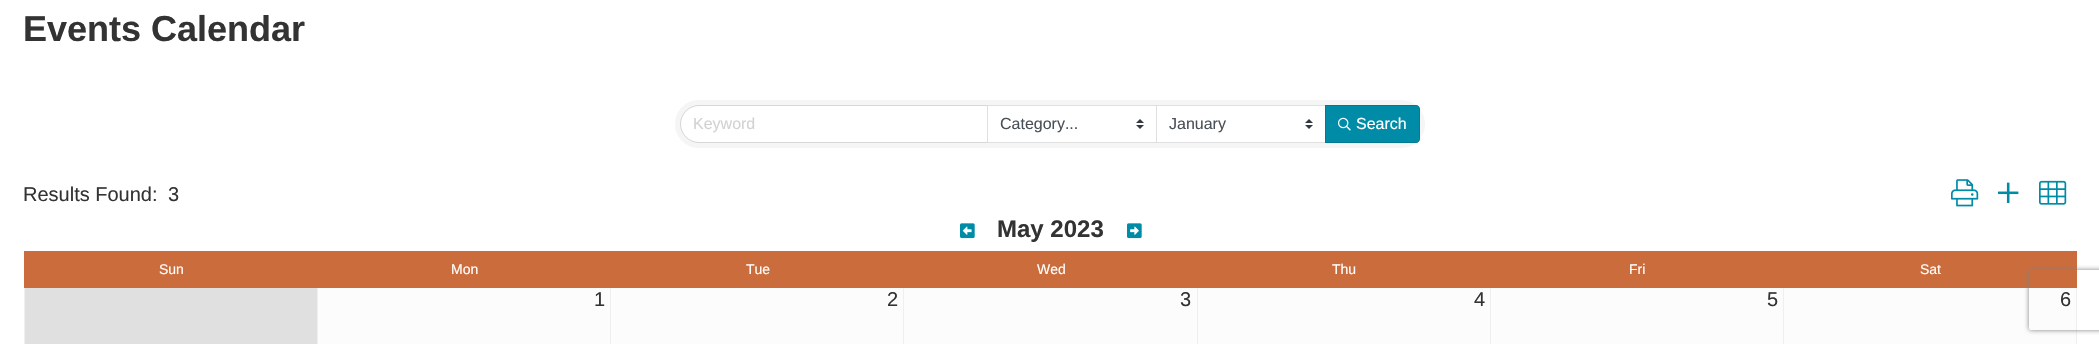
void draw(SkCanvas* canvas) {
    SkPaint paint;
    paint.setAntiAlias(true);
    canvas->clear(0xFFFFFFFF);
    SkFont font1(fontMgr->matchFamilyStyle("Liberation Sans", SkFontStyle::Bold()), 36);
    font1.setSubpixel(true);
    paint.setColor(0xFF333333);
    canvas->drawString("Events Calendar", 23, 41, font1, paint);
    paint.setColor(0xFFF5F5F5);
    canvas->drawRoundRect(SkRect::MakeXYWH(675, 100, 750, 48), 24, 24, paint);
    paint.setColor(0xFFFFFFFF);
    canvas->drawPath(SkPathBuilder().moveTo(699, 106).lineTo(987, 106).lineTo(987, 142).lineTo(699, 142).cubicTo(689, 142, 681, 134, 681, 124).cubicTo(681, 114, 689, 106, 699, 106).close().detach(), paint);
    paint.setStyle(SkPaint::kStroke_Style);
    paint.setStrokeWidth(1);
    paint.setColor(0x1F000000);
    canvas->drawPath(SkPathBuilder().moveTo(699, 105.5f).lineTo(987.5f, 105.5f).lineTo(987.5f, 142.5f).lineTo(699, 142.5f).cubicTo(689, 142.5f, 680.5f, 134, 680.5f, 124).cubicTo(680.5f, 114, 689, 105.5f, 699, 105.5f).close().detach(), paint);
    SkFont font2(fontMgr->matchFamilyStyle("Liberation Sans", SkFontStyle::Normal()), 16);
    font2.setSubpixel(true);
    paint.setStyle(SkPaint::kFill_Style);
    paint.setColor(0xFFD2D2D2);
    canvas->drawString("Keyword", 693, 129, font2, paint);
    paint.setColor(0xFFFFFFFF);
    canvas->drawRect(SkRect::MakeXYWH(988, 106, 168, 36), paint);
    canvas->drawImageRect(SkImages::DeferredFromEncodedData(SkData::MakeFromFileName("img1.png")), SkRect::MakeXYWH(1136, 119, 8, 10), SkSamplingOptions());
    paint.setStyle(SkPaint::kStroke_Style);
    paint.setColor(0xFFDFDFDF);
    canvas->drawRect(SkRect::MakeXYWH(987.5f, 105.5f, 169, 37), paint);
    paint.setStyle(SkPaint::kFill_Style);
    paint.setColor(0xFF495057);
    canvas->drawString("Category...", 1000, 129, font2, paint);
    paint.setColor(0xFFFFFFFF);
    canvas->drawRect(SkRect::MakeXYWH(1157, 106, 168, 36), paint);
    canvas->drawImageRect(SkImages::DeferredFromEncodedData(SkData::MakeFromFileName("img1.png")), SkRect::MakeXYWH(1305, 119, 8, 10), SkSamplingOptions());
    paint.setStyle(SkPaint::kStroke_Style);
    paint.setColor(0xFFDFDFDF);
    canvas->drawRect(SkRect::MakeXYWH(1156.5f, 105.5f, 169, 37), paint);
    paint.setStyle(SkPaint::kFill_Style);
    paint.setColor(0xFF495057);
    canvas->drawString("January", 1169, 129, font2, paint);
    paint.setColor(0xFF008CA7);
    canvas->drawPath(SkPathBuilder().moveTo(1325, 105).lineTo(1416, 105).cubicTo(1418, 105, 1420, 107, 1420, 109).lineTo(1420, 139).cubicTo(1420, 141, 1418, 143, 1416, 143).lineTo(1325, 143).close().detach(), paint);
    paint.setStyle(SkPaint::kStroke_Style);
    paint.setColor(0x1F000000);
    canvas->drawPath(SkPathBuilder().moveTo(1325.5f, 105.5f).lineTo(1416, 105.5f).cubicTo(1418, 105.5f, 1419.5f, 107, 1419.5f, 109).lineTo(1419.5f, 139).cubicTo(1419.5f, 141, 1418, 142.5f, 1416, 142.5f).lineTo(1325.5f, 142.5f).close().detach(), paint);
    canvas->drawImageRect(SkImages::DeferredFromEncodedData(SkData::MakeFromFileName("img2.png")), SkRect::MakeXYWH(1338, 117, 13, 14), SkSamplingOptions());
    paint.setStyle(SkPaint::kFill_Style);
    paint.setColor(0xFFFFFFFF);
    canvas->drawString("Search", 1356, 129, font2, paint);
    SkFont font3(fontMgr->matchFamilyStyle("Liberation Sans", SkFontStyle::Normal()), 20);
    font3.setSubpixel(true);
    paint.setColor(0xFF333333);
    canvas->drawString("Results Found:", 23, 201, font3, paint);
    canvas->drawString("3", 168, 201, font3, paint);
    canvas->drawImageRect(SkImages::DeferredFromEncodedData(SkData::MakeFromFileName("img3.png")), SkRect::MakeXYWH(1951, 179, 28, 28), SkSamplingOptions());
    canvas->drawImageRect(SkImages::DeferredFromEncodedData(SkData::MakeFromFileName("img4.png")), SkRect::MakeXYWH(1998, 182, 21, 21), SkSamplingOptions());
    canvas->drawImageRect(SkImages::DeferredFromEncodedData(SkData::MakeFromFileName("img5.png")), SkRect::MakeXYWH(2039, 180, 28, 25), SkSamplingOptions());
    canvas->drawImageRect(SkImages::DeferredFromEncodedData(SkData::MakeFromFileName("img6.png")), SkRect::MakeXYWH(960, 223, 15, 16), SkSamplingOptions());
    SkFont font4(fontMgr->matchFamilyStyle("Liberation Sans", SkFontStyle::Bold()), 24);
    font4.setSubpixel(true);
    canvas->drawString("May 2023", 997, 237, font4, paint);
    canvas->drawImageRect(SkImages::DeferredFromEncodedData(SkData::MakeFromFileName("img7.png")), SkRect::MakeXYWH(1127, 223, 15, 16), SkSamplingOptions());
    paint.setColor(0xFFCB6C3C);
    canvas->drawRect(SkRect::MakeXYWH(25, 252, 2051, 35), paint);
    canvas->drawRect(SkRect::MakeXYWH(24, 251, 2053, 1), paint);
    paint.setColor(0xFFEFEFEF);
    canvas->drawRect(SkRect::MakeXYWH(2076, 287, 1, 57), paint);
    paint.setColor(0xFFCB6C3C);
    canvas->drawRect(SkRect::MakeXYWH(2076, 251, 1, 37), paint);
    paint.setColor(0xFFEFEFEF);
    canvas->drawRect(SkRect::MakeXYWH(24, 287, 1, 57), paint);
    canvas->drawRect(SkRect::MakeXYWH(317, 287, 1, 57), paint);
    paint.setColor(0xFFFCFCFC);
    canvas->drawRect(SkRect::MakeXYWH(318, 288, 1758, 56), paint);
    paint.setColor(0xFFEFEFEF);
    canvas->drawRect(SkRect::MakeXYWH(610, 287, 1, 57), paint);
    canvas->drawRect(SkRect::MakeXYWH(903, 287, 1, 57), paint);
    canvas->drawRect(SkRect::MakeXYWH(1197, 287, 1, 57), paint);
    canvas->drawRect(SkRect::MakeXYWH(1490, 287, 1, 57), paint);
    canvas->drawRect(SkRect::MakeXYWH(1783, 287, 1, 57), paint);
    paint.setColor(0xFFCB6C3C);
    canvas->drawRect(SkRect::MakeXYWH(24, 287, 2053, 1), paint);
    canvas->drawRect(SkRect::MakeXYWH(24, 251, 1, 37), paint);
    SkFont font5(fontMgr->matchFamilyStyle("Liberation Sans", SkFontStyle::Normal()), 14);
    font5.setSubpixel(true);
    paint.setColor(0xFFFFFFFF);
    canvas->drawString("Sun", 159, 274, font5, paint);
    canvas->drawString("Mon", 451, 274, font5, paint);
    canvas->drawString("Tue", 746, 274, font5, paint);
    canvas->drawString("Wed", 1037, 274, font5, paint);
    canvas->drawString("Thu", 1332, 274, font5, paint);
    canvas->drawString("Fri", 1629, 274, font5, paint);
    canvas->drawString("Sat", 1920, 274, font5, paint);
    paint.setColor(0xFFE0E0E0);
    canvas->drawRect(SkRect::MakeXYWH(25, 288, 292, 56), paint);
    paint.setColor(0xFF333333);
    canvas->drawString("1", 594, 306, font3, paint);
    canvas->drawString("2", 887, 306, font3, paint);
    canvas->drawString("3", 1180, 306, font3, paint);
    canvas->drawString("4", 1474, 306, font3, paint);
    canvas->drawString("5", 1767, 306, font3, paint);
    canvas->drawString("6", 2060, 306, font3, paint);
    canvas->save();
    canvas->clipPath(SkPathBuilder(SkPathFillType::kEvenOdd).moveTo(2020, 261).lineTo(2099, 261).lineTo(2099, 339).lineTo(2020, 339).close().moveTo(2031, 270).lineTo(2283, 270).cubicTo(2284, 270, 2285, 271, 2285, 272).lineTo(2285, 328).cubicTo(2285, 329, 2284, 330, 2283, 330).lineTo(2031, 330).cubicTo(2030, 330, 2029, 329, 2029, 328).lineTo(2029, 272).cubicTo(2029, 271, 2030, 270, 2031, 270).close().detach(), true);
    paint.setColor(0xFF808080);
    paint.setMaskFilter(SkMaskFilter::MakeBlur(kNormal_SkBlurStyle, 2.5f));
    canvas->drawRoundRect(SkRect::MakeXYWH(2029, 270, 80, 60), 2, 2, paint);
    paint.setMaskFilter(nullptr);
    canvas->restore();
}
